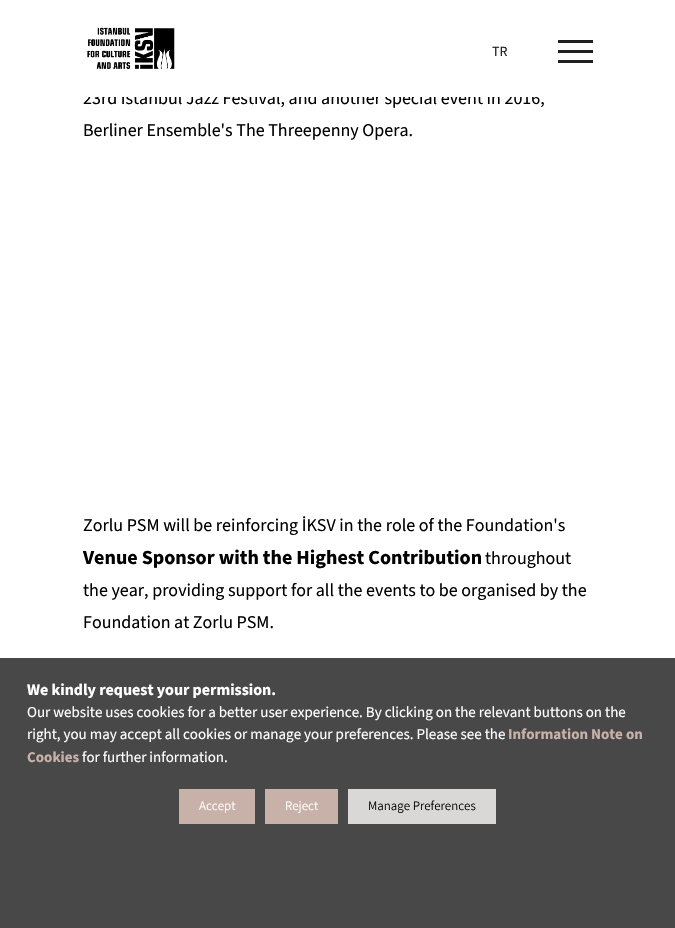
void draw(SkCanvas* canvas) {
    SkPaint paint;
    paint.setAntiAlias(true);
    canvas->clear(0xFFFFFFFF);
    SkFont font1(fontMgr->matchFamilyStyle("Source Sans 3", SkFontStyle::Normal()), 18);
    font1.setSubpixel(true);
    paint.setColor(0xFF000000);
    canvas->drawString("23rd Istanbul Jazz Festival, and another special event in 2016,", 83, 104, font1, paint);
    paint.setColor(0xFFFFFFFF);
    canvas->drawRect(SkRect::MakeXYWH(83, 91, 456, 6), paint);
    canvas->drawImageRect(SkImages::DeferredFromEncodedData(SkData::MakeFromFileName("img1.png")), SkRect::MakeXYWH(87, 27, 88, 42), SkSamplingOptions());
    SkFont font2(fontMgr->matchFamilyStyle("Source Sans 3", SkFontStyle::Normal()), 14);
    font2.setSubpixel(true);
    paint.setColor(0xFF202020);
    canvas->drawString("TR", 492, 56, font2, paint);
    canvas->drawRect(SkRect::MakeXYWH(558, 40, 35, 3), paint);
    canvas->drawRect(SkRect::MakeXYWH(558, 50, 35, 3), paint);
    canvas->drawRect(SkRect::MakeXYWH(558, 60, 35, 3), paint);
    paint.setColor(0xFF000000);
    canvas->drawString("Berliner Ensemble's The Threepenny Opera.", 83, 136, font1, paint);
    canvas->drawString("Zorlu PSM will be reinforcing İKSV in the role of the Foundation's", 83, 531, font1, paint);
    SkFont font3(fontMgr->matchFamilyStyle("Source Sans 3", SkFontStyle::Bold()), 20);
    font3.setSubpixel(true);
    canvas->drawString("Venue Sponsor with the Highest Contribution", 83, 564, font3, paint);
    canvas->drawString("throughout", 485, 564, font1, paint);
    canvas->drawString("the year, providing support for all the events to be organised by the", 83, 596, font1, paint);
    canvas->drawString("Foundation at Zorlu PSM.", 83, 628, font1, paint);
    paint.setColor(0xFF484848);
    canvas->drawRect(SkRect::MakeXYWH(0, 658, 675, 270), paint);
    SkFont font4(fontMgr->matchFamilyStyle("Source Sans 3", SkFontStyle::Bold()), 16);
    font4.setSubpixel(true);
    paint.setColor(0xFFFFFFFF);
    canvas->drawString("We kindly request your permission.", 27, 695, font4, paint);
    SkFont font5(fontMgr->matchFamilyStyle("Source Sans 3", SkFontStyle::Normal()), 15);
    font5.setSubpixel(true);
    canvas->drawString("Our website uses cookies for a better user experience. By clicking on the relevant buttons on the", 27, 717, font5, paint);
    canvas->drawString("right, you may accept all cookies or manage your preferences. Please see the", 27, 739, font5, paint);
    SkFont font6(fontMgr->matchFamilyStyle("Source Sans 3", SkFontStyle::Bold()), 15);
    font6.setSubpixel(true);
    paint.setColor(0xFFC8B1A8);
    canvas->drawString("Information Note on", 508, 739, font6, paint);
    canvas->drawString("Cookies", 27, 762, font6, paint);
    paint.setColor(0xFFFFFFFF);
    canvas->drawString("for further information.", 82, 762, font5, paint);
    paint.setColor(0xFFC8B1A8);
    canvas->drawRect(SkRect::MakeXYWH(179, 789, 76, 35), paint);
    SkFont font7(fontMgr->matchFamilyStyle("Source Sans 3", SkFontStyle(300, SkFontStyle::kNormal_Width, SkFontStyle::kUpright_Slant)), 13);
    font7.setSubpixel(true);
    paint.setColor(0xFFFFFFFF);
    canvas->drawString("Accept", 199, 810, font7, paint);
    paint.setColor(0xFFC8B1A8);
    canvas->drawRect(SkRect::MakeXYWH(265, 789, 73, 35), paint);
    paint.setColor(0xFFFFFFFF);
    canvas->drawString("Reject", 285, 810, font7, paint);
    paint.setColor(0xFFDAD7D7);
    canvas->drawRect(SkRect::MakeXYWH(348, 789, 148, 35), paint);
    paint.setColor(0xFF000000);
    canvas->drawString("Manage Preferences", 368, 810, font7, paint);
}
